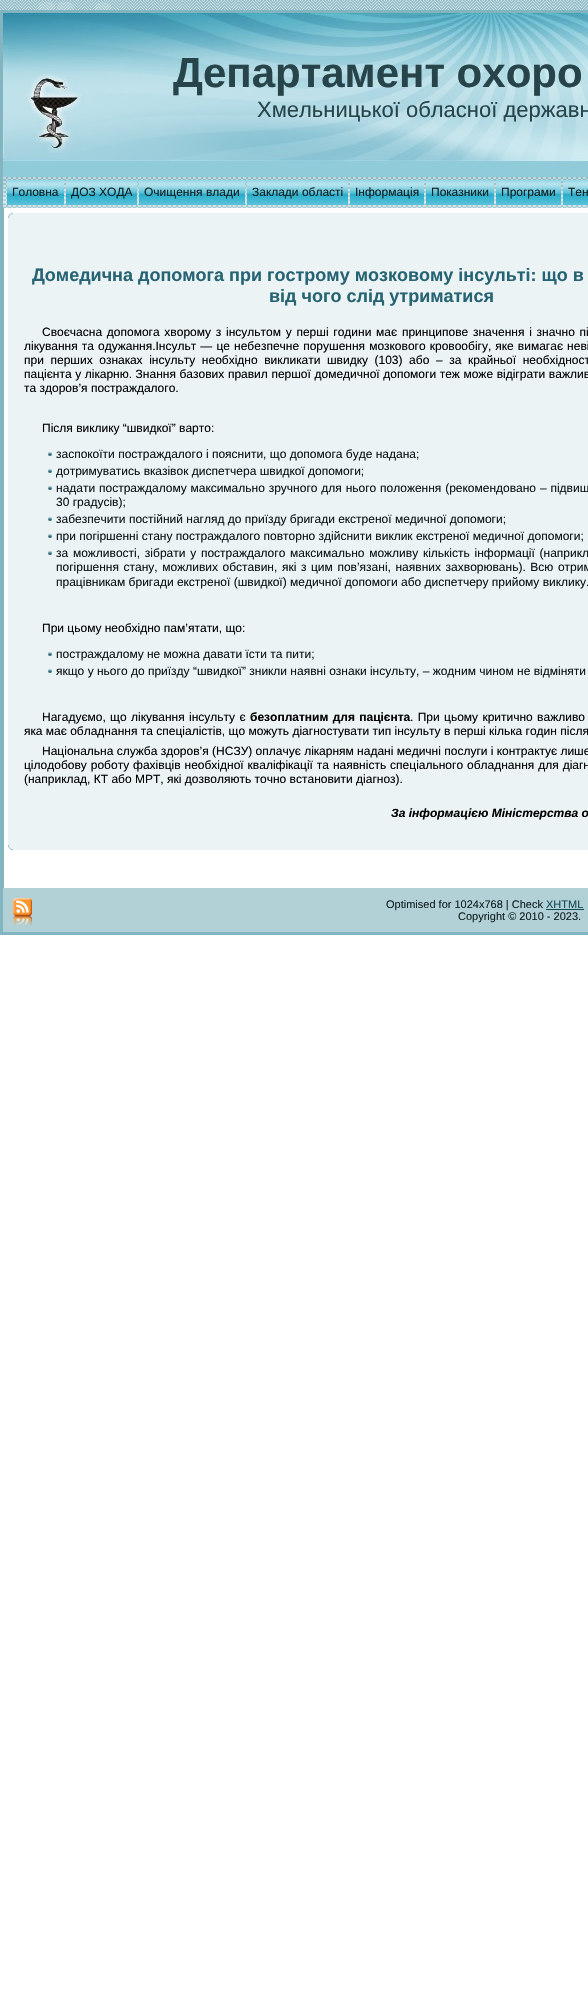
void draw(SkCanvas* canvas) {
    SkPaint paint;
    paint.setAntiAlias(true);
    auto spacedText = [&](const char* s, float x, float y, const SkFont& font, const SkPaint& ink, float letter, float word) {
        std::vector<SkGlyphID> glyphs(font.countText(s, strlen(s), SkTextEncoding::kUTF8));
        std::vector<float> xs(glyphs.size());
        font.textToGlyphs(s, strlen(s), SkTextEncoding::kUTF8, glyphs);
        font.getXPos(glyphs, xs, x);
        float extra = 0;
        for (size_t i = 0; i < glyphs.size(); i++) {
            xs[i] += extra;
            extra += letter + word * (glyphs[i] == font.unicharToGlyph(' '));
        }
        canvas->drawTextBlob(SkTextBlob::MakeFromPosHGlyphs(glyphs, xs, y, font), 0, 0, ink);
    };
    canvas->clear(0xFFFFFFFF);
    canvas->drawImageRect(SkImages::DeferredFromEncodedData(SkData::MakeFromFileName("img1.png")), SkRect::MakeXYWH(0, 0, 588, 10), SkSamplingOptions());
    canvas->drawImageRect(SkImages::DeferredFromEncodedData(SkData::MakeFromFileName("img2.png")), SkRect::MakeXYWH(38, 2, 74, 8), SkSamplingOptions());
    paint.setColor(0xFF82B5BF);
    canvas->drawRect(SkRect::MakeXYWH(0, 10, 4, 4), paint);
    canvas->drawRect(SkRect::MakeXYWH(4, 10, 584, 3), paint);
    canvas->drawRect(SkRect::MakeXYWH(0, 14, 4, 921), paint);
    canvas->drawImageRect(SkImages::DeferredFromEncodedData(SkData::MakeFromFileName("img3.png")), SkRect::MakeXYWH(3, 13, 585, 164), SkSamplingOptions());
    SkFont font1(fontMgr->matchFamilyStyle("Liberation Sans", SkFontStyle::Bold()), 42);
    font1.setSubpixel(true);
    paint.setColor(0xFF26444A);
    canvas->drawString("Департамент охоро", 173, 87, font1, paint);
    SkFont font2(fontMgr->matchFamilyStyle("Liberation Sans", SkFontStyle::Normal()), 22);
    font2.setSubpixel(true);
    canvas->drawString("Хмельницької обласної державн", 257, 117, font2, paint);
    canvas->drawImageRect(SkImages::DeferredFromEncodedData(SkData::MakeFromFileName("img4.png")), SkRect::MakeXYWH(3, 177, 585, 31), SkSamplingOptions());
    canvas->drawImageRect(SkImages::DeferredFromEncodedData(SkData::MakeFromFileName("img5.png")), SkRect::MakeXYWH(7, 180, 57, 25), SkSamplingOptions());
    SkFont font3(fontMgr->matchFamilyStyle("Liberation Sans", SkFontStyle::Normal()), 12);
    font3.setSubpixel(true);
    paint.setColor(0xFF111F22);
    canvas->drawString("Головна", 12, 196, font3, paint);
    canvas->drawImageRect(SkImages::DeferredFromEncodedData(SkData::MakeFromFileName("img6.png")), SkRect::MakeXYWH(66, 180, 71, 25), SkSamplingOptions());
    canvas->drawString("ДОЗ ХОДА", 71, 196, font3, paint);
    canvas->drawImageRect(SkImages::DeferredFromEncodedData(SkData::MakeFromFileName("img7.png")), SkRect::MakeXYWH(139, 180, 106, 25), SkSamplingOptions());
    canvas->drawString("Очищення влади", 144, 196, font3, paint);
    canvas->drawImageRect(SkImages::DeferredFromEncodedData(SkData::MakeFromFileName("img8.png")), SkRect::MakeXYWH(247, 180, 101, 25), SkSamplingOptions());
    canvas->drawString("Заклади області", 252, 196, font3, paint);
    canvas->drawImageRect(SkImages::DeferredFromEncodedData(SkData::MakeFromFileName("img9.png")), SkRect::MakeXYWH(350, 180, 74, 25), SkSamplingOptions());
    canvas->drawString("Інформація", 355, 196, font3, paint);
    canvas->drawImageRect(SkImages::DeferredFromEncodedData(SkData::MakeFromFileName("img10.png")), SkRect::MakeXYWH(426, 180, 68, 25), SkSamplingOptions());
    canvas->drawString("Показники", 431, 196, font3, paint);
    canvas->drawImageRect(SkImages::DeferredFromEncodedData(SkData::MakeFromFileName("img11.png")), SkRect::MakeXYWH(496, 180, 65, 25), SkSamplingOptions());
    canvas->drawString("Програми", 501, 196, font3, paint);
    canvas->drawImageRect(SkImages::DeferredFromEncodedData(SkData::MakeFromFileName("img12.png")), SkRect::MakeXYWH(563, 180, 25, 25), SkSamplingOptions());
    canvas->drawString("Тен", 568, 196, font3, paint);
    canvas->drawImageRect(SkImages::DeferredFromEncodedData(SkData::MakeFromFileName("img13.png")), SkRect::MakeXYWH(8, 213, 5, 5), SkSamplingOptions());
    paint.setColor(0xFFEBF3F5);
    canvas->drawRect(SkRect::MakeXYWH(13, 213, 575, 5), paint);
    canvas->drawRect(SkRect::MakeXYWH(8, 218, 580, 627), paint);
    SkFont font4(fontMgr->matchFamilyStyle("Liberation Sans", SkFontStyle::Bold()), 18);
    font4.setSubpixel(true);
    paint.setColor(0xFF266373);
    canvas->drawString("Домедична допомога при гострому мозковому інсульті: що в", 32, 281, font4, paint);
    canvas->drawString("від чого слід утриматися", 269, 302, font4, paint);
    paint.setColor(0xFF000000);
    spacedText("Своєчасна допомога хворому з інсультом у перші години має принципове значення і значно пі", 42, 336, font3, paint, 0, 1.4f);
    spacedText("лікування та одужання.Інсульт — це небезпечне порушення мозкового кровообігу, яке вимагає неві", 24, 350, font3, paint, 0, 0.75f);
    spacedText("при перших ознаках інсульту необхідно викликати швидку (103) або – за крайньої необхідност", 24, 364, font3, paint, 0, 3.25f);
    spacedText("пацієнта у лікарню. Знання базових правил першої домедичної допомоги теж може відіграти важлив", 24, 378, font3, paint, 0, 0.25f);
    canvas->drawString("та здоров’я постраждалого.", 24, 392, font3, paint);
    canvas->drawString("Після виклику “швидкої” варто:", 42, 432, font3, paint);
    canvas->drawImageRect(SkImages::DeferredFromEncodedData(SkData::MakeFromFileName("img14.png")), SkRect::MakeXYWH(48, 452, 4, 4), SkSamplingOptions());
    paint.setColor(0xFF0C1618);
    canvas->drawString("заспокоїти постраждалого і пояснити, що допомога буде надана;", 56, 458, font3, paint);
    canvas->drawImageRect(SkImages::DeferredFromEncodedData(SkData::MakeFromFileName("img14.png")), SkRect::MakeXYWH(48, 469, 4, 4), SkSamplingOptions());
    canvas->drawString("дотримуватись вказівок диспетчера швидкої допомоги;", 56, 475, font3, paint);
    canvas->drawImageRect(SkImages::DeferredFromEncodedData(SkData::MakeFromFileName("img14.png")), SkRect::MakeXYWH(48, 486, 4, 4), SkSamplingOptions());
    spacedText("надати постраждалому максимально зручного для нього положення (рекомендовано – підвищ", 56, 492, font3, paint, 0, 0.5f);
    canvas->drawString("30 градусів);", 56, 506, font3, paint);
    canvas->drawImageRect(SkImages::DeferredFromEncodedData(SkData::MakeFromFileName("img14.png")), SkRect::MakeXYWH(48, 517, 4, 4), SkSamplingOptions());
    canvas->drawString("забезпечити постійний нагляд до приїзду бригади екстреної медичної допомоги;", 56, 523, font3, paint);
    canvas->drawImageRect(SkImages::DeferredFromEncodedData(SkData::MakeFromFileName("img14.png")), SkRect::MakeXYWH(48, 534, 4, 4), SkSamplingOptions());
    canvas->drawString("при погіршенні стану постраждалого повторно здійснити виклик екстреної медичної допомоги;", 56, 540, font3, paint);
    canvas->drawImageRect(SkImages::DeferredFromEncodedData(SkData::MakeFromFileName("img14.png")), SkRect::MakeXYWH(48, 551, 4, 4), SkSamplingOptions());
    spacedText("за можливості, зібрати у постраждалого максимально можливу кількість інформації (наприкл", 56, 557, font3, paint, 0, 1.4f);
    spacedText("погіршення стану, можливих обставин, які з цим пов’язані, наявних захворювань). Всю отрим", 56, 571, font3, paint, 0, 1.25f);
    canvas->drawString("працівникам бригади екстреної (швидкої) медичної допомоги або диспетчеру прийому виклику.", 56, 586, font3, paint);
    paint.setColor(0xFF000000);
    canvas->drawString("При цьому необхідно пам’ятати, що:", 42, 632, font3, paint);
    canvas->drawImageRect(SkImages::DeferredFromEncodedData(SkData::MakeFromFileName("img14.png")), SkRect::MakeXYWH(48, 652, 4, 4), SkSamplingOptions());
    paint.setColor(0xFF0C1618);
    canvas->drawString("постраждалому не можна давати їсти та пити;", 56, 658, font3, paint);
    canvas->drawImageRect(SkImages::DeferredFromEncodedData(SkData::MakeFromFileName("img14.png")), SkRect::MakeXYWH(48, 669, 4, 4), SkSamplingOptions());
    canvas->drawString("якщо у нього до приїзду “швидкої” зникли наявні ознаки інсульту, – жодним чином не відміняти", 56, 675, font3, paint);
    paint.setColor(0xFF000000);
    spacedText("Нагадуємо, що лікування інсульту є", 42, 721, font3, paint, 0, 1);
    SkFont font5(fontMgr->matchFamilyStyle("Liberation Sans", SkFontStyle::Bold()), 12);
    font5.setSubpixel(true);
    spacedText("безоплатним для пацієнта", 250, 721, font5, paint, 0, 1);
    spacedText(". При цьому критично важливо", 410, 721, font3, paint, 0, 1);
    canvas->drawString("яка має обладнання та спеціалістів, що можуть діагностувати тип інсульту в перші кілька годин пiсля", 24, 735, font3, paint);
    canvas->drawString("Національна служба здоров’я (НСЗУ) оплачує лікарням надані медичні послуги і контрактує лише", 42, 755, font3, paint);
    spacedText("цілодобову роботу фахівців необхідної кваліфікації та наявність спеціального обладнання для діагн", 24, 769, font3, paint, 0, 0.6f);
    canvas->drawString("(наприклад, КТ або МРТ, які дозволяють точно встановити діагноз).", 24, 783, font3, paint);
    SkFont font6(fontMgr->matchFamilyStyle("Liberation Sans", SkFontStyle::BoldItalic()), 12);
    font6.setSubpixel(true);
    canvas->drawString("За інформацією Міністерства о", 391, 817, font6, paint);
    canvas->drawImageRect(SkImages::DeferredFromEncodedData(SkData::MakeFromFileName("img15.png")), SkRect::MakeXYWH(8, 845, 5, 5), SkSamplingOptions());
    paint.setColor(0xFFEBF3F5);
    canvas->drawRect(SkRect::MakeXYWH(13, 845, 575, 5), paint);
    paint.setColor(0xFFB2D1D7);
    canvas->drawRect(SkRect::MakeXYWH(3, 888, 585, 44), paint);
    canvas->drawImageRect(SkImages::DeferredFromEncodedData(SkData::MakeFromFileName("img16.png")), SkRect::MakeXYWH(13, 898, 19, 28), SkSamplingOptions());
    SkFont font7(fontMgr->matchFamilyStyle("Liberation Sans", SkFontStyle::Normal()), 11);
    font7.setSubpixel(true);
    paint.setColor(0xFF111F22);
    canvas->drawString("Optimised for 1024x768 | Check", 386, 908, font7, paint);
    paint.setColor(0xFF134753);
    canvas->drawString("XHTML", 546, 908, font7, paint);
    canvas->drawRect(SkRect::MakeXYWH(546, 909, 38, 1), paint);
    paint.setColor(0xFF111F22);
    canvas->drawString("Copyright © 2010 - 2023.", 458, 920, font7, paint);
    paint.setColor(0xFF82B5BF);
    canvas->drawRect(SkRect::MakeXYWH(4, 932, 584, 3), paint);
}
